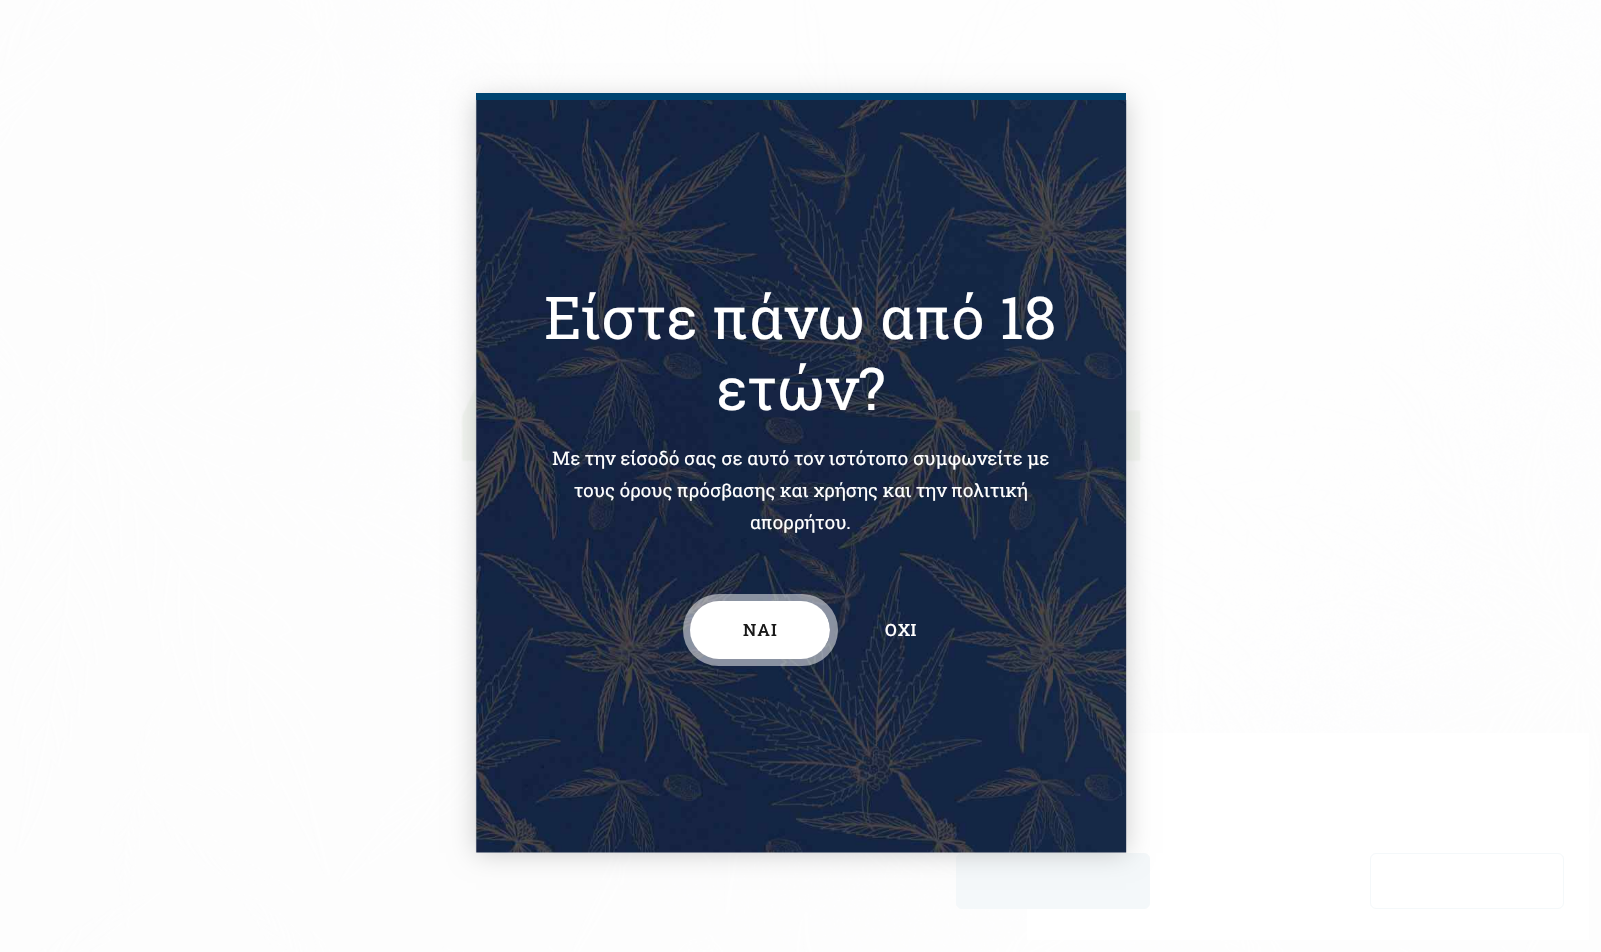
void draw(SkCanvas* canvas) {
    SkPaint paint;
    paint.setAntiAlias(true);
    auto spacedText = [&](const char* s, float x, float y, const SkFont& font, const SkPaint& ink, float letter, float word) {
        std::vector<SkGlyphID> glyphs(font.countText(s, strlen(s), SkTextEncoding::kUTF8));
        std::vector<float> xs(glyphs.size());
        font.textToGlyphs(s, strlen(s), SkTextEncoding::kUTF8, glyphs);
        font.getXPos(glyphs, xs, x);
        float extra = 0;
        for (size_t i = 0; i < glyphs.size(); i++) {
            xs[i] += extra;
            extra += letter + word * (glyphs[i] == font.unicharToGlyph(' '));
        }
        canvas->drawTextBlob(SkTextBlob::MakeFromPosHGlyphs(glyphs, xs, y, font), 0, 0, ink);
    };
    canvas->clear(0xFFFFFFFF);
    canvas->drawImageRect(SkImages::DeferredFromEncodedData(SkData::MakeFromFileName("img1.png")), SkRect::MakeXYWH(0, 0, 1601, 952), SkSamplingOptions());
    canvas->drawImageRect(SkImages::DeferredFromEncodedData(SkData::MakeFromFileName("img2.png")), SkRect::MakeXYWH(461, 91, 681, 371), SkSamplingOptions());
    paint.setColor(0xFFFFFFFF);
    canvas->drawRect(SkRect::MakeXYWH(1027, 733, 562, 207), paint);
    paint.setColor(0xFFF4F8FA);
    canvas->drawRoundRect(SkRect::MakeXYWH(956.5f, 853.5f, 193, 55), 5.5f, 5.5f, paint);
    paint.setStyle(SkPaint::kStroke_Style);
    paint.setStrokeWidth(1);
    canvas->drawRoundRect(SkRect::MakeXYWH(956.5f, 853.5f, 193, 55), 5.5f, 5.5f, paint);
    paint.setStyle(SkPaint::kFill_Style);
    paint.setColor(0x33000000);
    paint.setMaskFilter(SkMaskFilter::MakeBlur(kNormal_SkBlurStyle, 12.5f));
    canvas->drawRect(SkRect::MakeXYWH(476, 100, 650, 753), paint);
    paint.setMaskFilter(nullptr);
    canvas->drawImageRect(SkImages::DeferredFromEncodedData(SkData::MakeFromFileName("img3.png")), SkRect::MakeXYWH(475, 100, 652, 753), SkSamplingOptions());
    paint.setColor(0xFF004471);
    canvas->drawRect(SkRect::MakeXYWH(476, 93, 650, 7), paint);
    SkFont font1(fontMgr->matchFamilyStyle("Roboto Slab", SkFontStyle::Normal()), 59);
    font1.setSubpixel(true);
    paint.setColor(0xFFFFFFFF);
    canvas->drawString("Είστε πάνω από 18", 544, 339, font1, paint);
    canvas->drawString("ετών?", 716, 410, font1, paint);
    SkFont font2(fontMgr->matchFamilyStyle("Roboto Slab", SkFontStyle::Normal()), 18.75f);
    font2.setSubpixel(true);
    canvas->drawString("Με την είσοδό σας σε αυτό τον ιστότοπο συμφωνείτε με", 552, 465, font2, paint);
    canvas->drawString("τους όρους πρόσβασης και χρήσης και την πολιτική", 574, 497, font2, paint);
    canvas->drawString("απορρήτου.", 750, 529, font2, paint);
    canvas->drawRoundRect(SkRect::MakeXYWH(690, 601, 140, 58), 29, 29, paint);
    paint.setStyle(SkPaint::kStroke_Style);
    paint.setStrokeWidth(8);
    paint.setColor(0x80FFFFFF);
    canvas->drawRoundRect(SkRect::MakeXYWH(687, 598, 147, 64), 32, 32, paint);
    SkFont font3(fontMgr->matchFamilyStyle("Roboto Slab", SkFontStyle(500, SkFontStyle::kNormal_Width, SkFontStyle::kUpright_Slant)), 17);
    font3.setSubpixel(true);
    paint.setStyle(SkPaint::kFill_Style);
    paint.setColor(0xFF191919);
    spacedText("ΝΑΙ", 743, 636, font3, paint, 1, 0);
    paint.setColor(0xFFFFFFFF);
    spacedText("ΟΧΙ", 885, 636, font3, paint, 1, 0);
    paint.setStyle(SkPaint::kStroke_Style);
    paint.setStrokeWidth(1);
    paint.setColor(0xFFF4F8FA);
    canvas->drawRoundRect(SkRect::MakeXYWH(1370.5f, 853.5f, 193, 55), 5.5f, 5.5f, paint);
}
